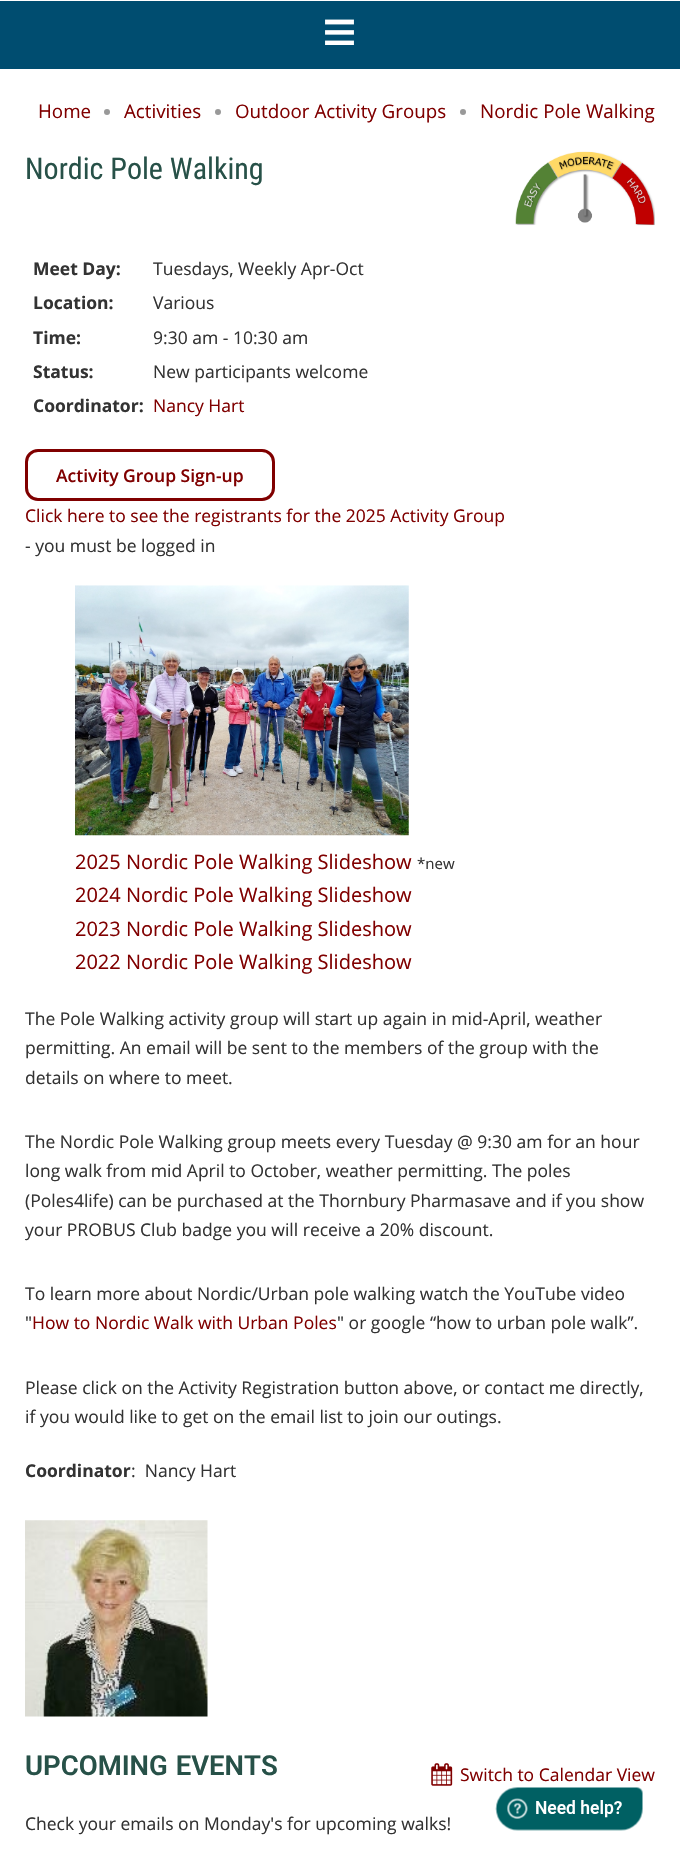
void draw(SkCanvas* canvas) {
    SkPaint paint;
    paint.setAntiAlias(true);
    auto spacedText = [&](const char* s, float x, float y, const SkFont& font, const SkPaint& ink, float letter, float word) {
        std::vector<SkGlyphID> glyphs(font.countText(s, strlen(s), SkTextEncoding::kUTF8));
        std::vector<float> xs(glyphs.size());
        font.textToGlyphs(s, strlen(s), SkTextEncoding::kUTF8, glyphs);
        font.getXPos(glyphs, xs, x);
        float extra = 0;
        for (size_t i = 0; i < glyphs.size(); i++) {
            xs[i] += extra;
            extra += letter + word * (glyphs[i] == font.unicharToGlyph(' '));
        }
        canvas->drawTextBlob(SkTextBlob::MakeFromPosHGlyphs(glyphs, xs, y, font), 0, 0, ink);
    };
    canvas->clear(0xFFFFFFFF);
    paint.setColor(0xFF004D70);
    canvas->drawRect(SkRect::MakeXYWH(0, 1, 680, 68), paint);
    SkFont font1(fontMgr->matchFamilyStyle("Liberation Serif", SkFontStyle::Bold()), 62);
    font1.setSubpixel(true);
    paint.setColor(0xFFFFFFFF);
    canvas->drawString("≡", 322, 53, font1, paint);
    SkFont font2(fontMgr->matchFamilyStyle("Open Sans", SkFontStyle::Normal()), 18.75f);
    font2.setSubpixel(true);
    paint.setColor(0xFF800000);
    canvas->drawString("Home", 38, 118, font2, paint);
    paint.setColor(0xFF999999);
    canvas->drawCircle(107, 112, 3, paint);
    paint.setColor(0xFF800000);
    canvas->drawString("Activities", 124, 118, font2, paint);
    paint.setColor(0xFF999999);
    canvas->drawCircle(218, 112, 3, paint);
    paint.setColor(0xFF800000);
    canvas->drawString("Outdoor Activity Groups", 235, 118, font2, paint);
    paint.setColor(0xFF999999);
    canvas->drawCircle(463, 112, 3, paint);
    paint.setColor(0xFF800000);
    canvas->drawString("Nordic Pole Walking", 480, 118, font2, paint);
    SkFont font3(fontMgr->matchFamilyStyle("Roboto Condensed", SkFontStyle::Normal()), 30);
    font3.setSubpixel(true);
    paint.setColor(0xFF275148);
    canvas->drawString("Nordic Pole Walking", 25, 179, font3, paint);
    canvas->drawImageRect(SkImages::DeferredFromEncodedData(SkData::MakeFromFileName("img1.png")), SkRect::MakeXYWH(515, 151, 140, 75), SkSamplingOptions());
    SkFont font4(fontMgr->matchFamilyStyle("Open Sans", SkFontStyle::Bold()), 17.5f);
    font4.setSubpixel(true);
    paint.setColor(0xFF333333);
    canvas->drawString("Meet Day:", 33, 275, font4, paint);
    SkFont font5(fontMgr->matchFamilyStyle("Open Sans", SkFontStyle::Normal()), 17.5f);
    font5.setSubpixel(true);
    canvas->drawString("Tuesdays, Weekly Apr-Oct", 153, 275, font5, paint);
    canvas->drawString("Location:", 33, 309, font4, paint);
    canvas->drawString("Various", 153, 309, font5, paint);
    canvas->drawString("Time:", 33, 344, font4, paint);
    canvas->drawString("9:30 am - 10:30 am", 153, 344, font5, paint);
    canvas->drawString("Status:", 33, 378, font4, paint);
    canvas->drawString("New participants welcome", 153, 378, font5, paint);
    canvas->drawString("Coordinator:", 33, 412, font4, paint);
    paint.setColor(0xFF800000);
    canvas->drawString("Nancy Hart", 153, 412, font5, paint);
    paint.setStyle(SkPaint::kStroke_Style);
    paint.setStrokeWidth(3);
    canvas->drawRoundRect(SkRect::MakeXYWH(26.5f, 450.5f, 247, 49), 11.5f, 11.5f, paint);
    SkFont font6(fontMgr->matchFamilyStyle("Open Sans", SkFontStyle(600, SkFontStyle::kNormal_Width, SkFontStyle::kUpright_Slant)), 17.5f);
    font6.setSubpixel(true);
    paint.setStyle(SkPaint::kFill_Style);
    canvas->drawString("Activity Group Sign-up", 56, 482, font6, paint);
    canvas->drawString("Click here to see the registrants for the 2025 Activity Group", 25, 522, font5, paint);
    paint.setColor(0xFF333333);
    canvas->drawString("- you must be logged in", 25, 552, font5, paint);
    canvas->drawImageRect(SkImages::DeferredFromEncodedData(SkData::MakeFromFileName("img2.png")), SkRect::MakeXYWH(75, 585, 334, 251), SkSamplingOptions());
    SkFont font7(fontMgr->matchFamilyStyle("Open Sans", SkFontStyle::Normal()), 20);
    font7.setSubpixel(true);
    paint.setColor(0xFF800000);
    canvas->drawString("2025 Nordic Pole Walking Slideshow", 75, 869, font7, paint);
    SkFont font8(fontMgr->matchFamilyStyle("Open Sans", SkFontStyle::Normal()), 15);
    font8.setSubpixel(true);
    paint.setColor(0xFF333333);
    canvas->drawString("*new", 417, 869, font8, paint);
    paint.setColor(0xFF800000);
    canvas->drawString("2024 Nordic Pole Walking Slideshow", 75, 902, font7, paint);
    canvas->drawString("2023 Nordic Pole Walking Slideshow", 75, 936, font7, paint);
    canvas->drawString("2022 Nordic Pole Walking Slideshow", 75, 969, font7, paint);
    paint.setColor(0xFF333333);
    canvas->drawString("The Pole Walking activity group will start up again in mid-April, weather", 25, 1025, font5, paint);
    canvas->drawString("permitting. An email will be sent to the members of the group with the", 25, 1054, font5, paint);
    canvas->drawString("details on where to meet.", 25, 1084, font5, paint);
    canvas->drawString("The Nordic Pole Walking group meets every Tuesday @ 9:30 am for an hour", 25, 1148, font5, paint);
    canvas->drawString("long walk from mid April to October, weather permitting. The poles", 25, 1177, font5, paint);
    canvas->drawString("(Poles4life) can be purchased at the Thornbury Pharmasave and if you show", 25, 1207, font5, paint);
    canvas->drawString("your PROBUS Club badge you will receive a 20% discount.", 25, 1236, font5, paint);
    canvas->drawString("To learn more about Nordic/Urban pole walking watch the YouTube video", 25, 1300, font5, paint);
    canvas->drawString("\"", 25, 1329, font5, paint);
    paint.setColor(0xFF800000);
    canvas->drawString("How to Nordic Walk with Urban Poles", 32, 1329, font5, paint);
    paint.setColor(0xFF333333);
    canvas->drawString("\" or google “how to urban pole walk”.", 337, 1329, font5, paint);
    canvas->drawString("Please click on the Activity Registration button above, or contact me directly,", 25, 1394, font5, paint);
    canvas->drawString("if you would like to get on the email list to join our outings.", 25, 1423, font5, paint);
    canvas->drawString("Coordinator", 25, 1477, font4, paint);
    canvas->drawString(":  Nancy Hart", 131, 1477, font5, paint);
    canvas->drawImageRect(SkImages::DeferredFromEncodedData(SkData::MakeFromFileName("img3.png")), SkRect::MakeXYWH(25, 1520, 183, 197), SkSamplingOptions());
    SkFont font9(fontMgr->matchFamilyStyle("Roboto", SkFontStyle(600, SkFontStyle::kNormal_Width, SkFontStyle::kUpright_Slant)), 27.5f);
    font9.setSubpixel(true);
    paint.setColor(0xFF275148);
    spacedText("UPCOMING EVENTS", 25, 1775, font9, paint, 0, 1);
    canvas->drawImageRect(SkImages::DeferredFromEncodedData(SkData::MakeFromFileName("img4.png")), SkRect::MakeXYWH(431, 1763, 22, 23), SkSamplingOptions());
    paint.setColor(0xFF800000);
    canvas->drawString("Switch to Calendar View", 460, 1781, font5, paint);
    paint.setColor(0xFF333333);
    canvas->drawString("Check your emails on Monday's for upcoming walks!", 25, 1830, font5, paint);
    canvas->drawImageRect(SkImages::DeferredFromEncodedData(SkData::MakeFromFileName("img5.png")), SkRect::MakeXYWH(495, 1787, 148, 44), SkSamplingOptions());
}
